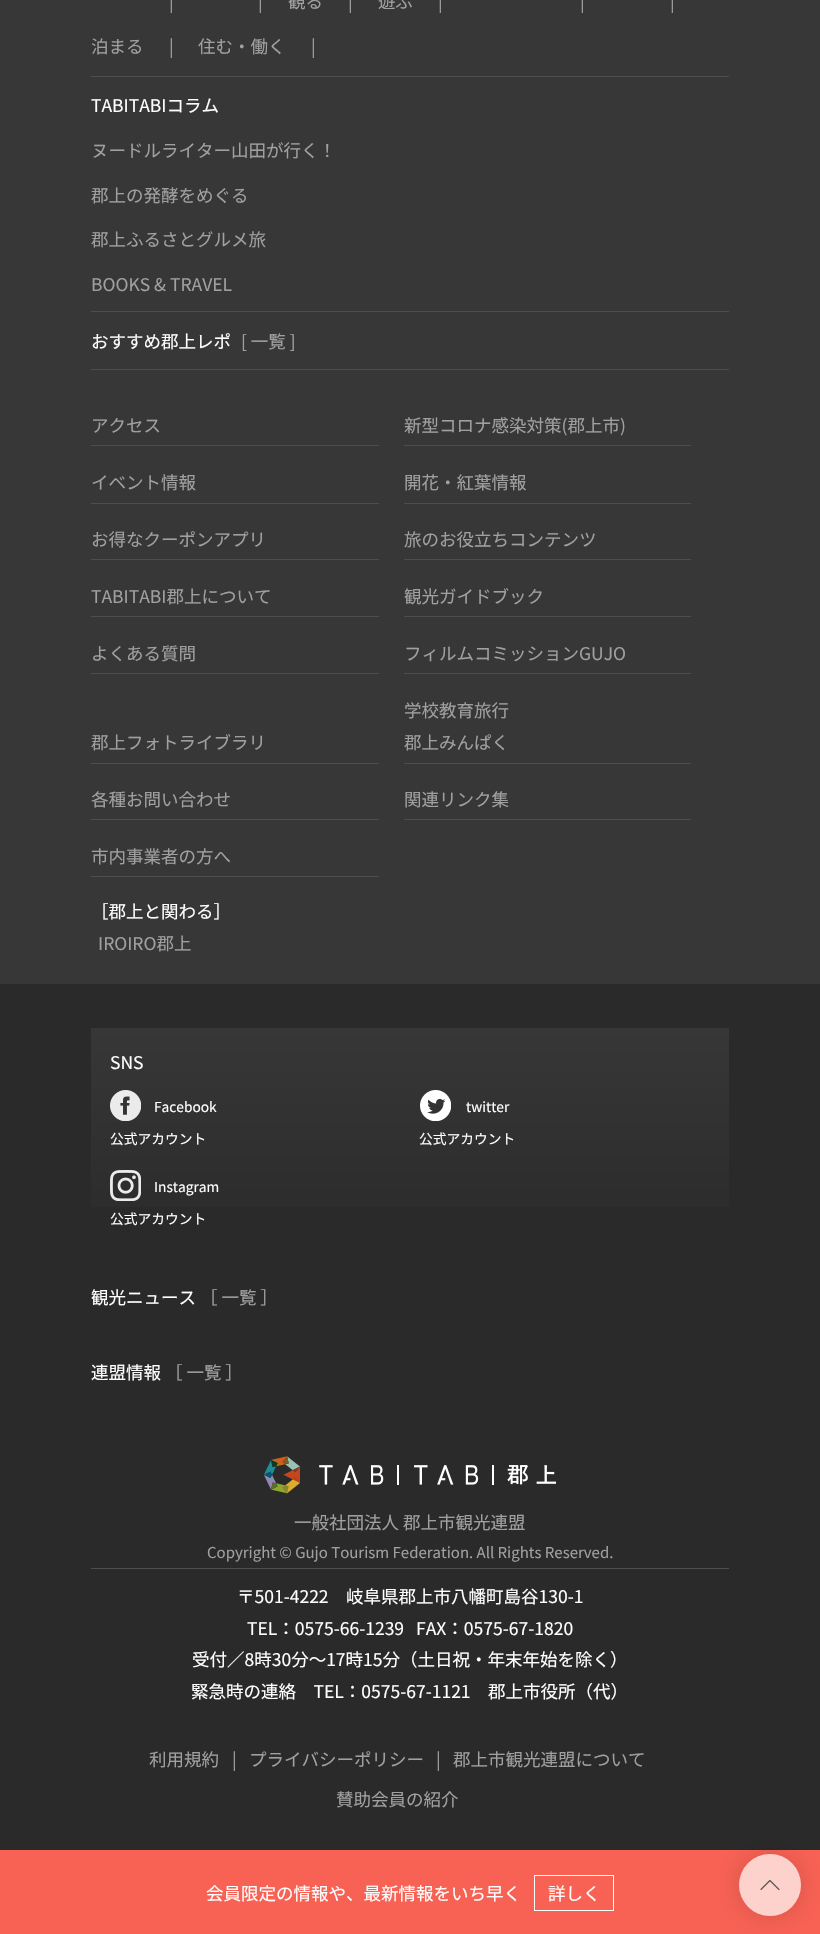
void draw(SkCanvas* canvas) {
    SkPaint paint;
    paint.setAntiAlias(true);
    canvas->clear(0xFF373737);
    SkFont font1(fontMgr->matchFamilyStyle("Noto Sans JP", SkFontStyle::Normal()), 17.5f);
    font1.setSubpixel(true);
    paint.setColor(0xFFA0A0A0);
    canvas->drawString("|", 169, 8, font1, paint);
    canvas->drawString("|", 258, 8, font1, paint);
    canvas->drawString("観る", 288, 8, font1, paint);
    canvas->drawString("|", 348, 8, font1, paint);
    canvas->drawString("遊ぶ", 378, 8, font1, paint);
    canvas->drawString("|", 438, 8, font1, paint);
    canvas->drawString("|", 580, 8, font1, paint);
    canvas->drawString("|", 670, 8, font1, paint);
    canvas->drawString("泊まる", 91, 53, font1, paint);
    canvas->drawString("|", 169, 53, font1, paint);
    canvas->drawString("住む・働く", 198, 53, font1, paint);
    canvas->drawString("|", 311, 53, font1, paint);
    paint.setColor(0xFF4D4D4D);
    canvas->drawRect(SkRect::MakeXYWH(91, 76, 638, 1), paint);
    paint.setColor(0xFFFFFFFF);
    canvas->drawString("TABITABIコラム", 91, 112, font1, paint);
    paint.setColor(0xFFA0A0A0);
    canvas->drawString("ヌードルライター山田が行く！", 91, 157, font1, paint);
    canvas->drawString("郡上の発酵をめぐる", 91, 202, font1, paint);
    canvas->drawString("郡上ふるさとグルメ旅", 91, 246, font1, paint);
    canvas->drawString("BOOKS & TRAVEL", 91, 291, font1, paint);
    paint.setColor(0xFF4D4D4D);
    canvas->drawRect(SkRect::MakeXYWH(91, 311, 638, 1), paint);
    paint.setColor(0xFFFFFFFF);
    canvas->drawString("おすすめ郡上レポ", 91, 348, font1, paint);
    paint.setColor(0xFFA0A0A0);
    canvas->drawString("[ 一覧 ]", 241, 348, font1, paint);
    paint.setColor(0xFF4D4D4D);
    canvas->drawRect(SkRect::MakeXYWH(91, 369, 638, 1), paint);
    paint.setColor(0xFFA0A0A0);
    canvas->drawString("アクセス", 91, 432, font1, paint);
    paint.setColor(0xFF4D4D4D);
    canvas->drawRect(SkRect::MakeXYWH(91, 445, 288, 1), paint);
    paint.setColor(0xFFA0A0A0);
    canvas->drawString("新型コロナ感染対策(郡上市)", 404, 432, font1, paint);
    paint.setColor(0xFF4D4D4D);
    canvas->drawRect(SkRect::MakeXYWH(404, 445, 287, 1), paint);
    paint.setColor(0xFFA0A0A0);
    canvas->drawString("イベント情報", 91, 489, font1, paint);
    paint.setColor(0xFF4D4D4D);
    canvas->drawRect(SkRect::MakeXYWH(91, 503, 288, 1), paint);
    paint.setColor(0xFFA0A0A0);
    canvas->drawString("開花・紅葉情報", 404, 489, font1, paint);
    paint.setColor(0xFF4D4D4D);
    canvas->drawRect(SkRect::MakeXYWH(404, 503, 287, 1), paint);
    paint.setColor(0xFFA0A0A0);
    canvas->drawString("お得なクーポンアプリ", 91, 546, font1, paint);
    paint.setColor(0xFF4D4D4D);
    canvas->drawRect(SkRect::MakeXYWH(91, 559, 288, 1), paint);
    paint.setColor(0xFFA0A0A0);
    canvas->drawString("旅のお役立ちコンテンツ", 404, 546, font1, paint);
    paint.setColor(0xFF4D4D4D);
    canvas->drawRect(SkRect::MakeXYWH(404, 559, 287, 1), paint);
    paint.setColor(0xFFA0A0A0);
    canvas->drawString("TABITABI郡上について", 91, 603, font1, paint);
    paint.setColor(0xFF4D4D4D);
    canvas->drawRect(SkRect::MakeXYWH(91, 616, 288, 1), paint);
    paint.setColor(0xFFA0A0A0);
    canvas->drawString("観光ガイドブック", 404, 603, font1, paint);
    paint.setColor(0xFF4D4D4D);
    canvas->drawRect(SkRect::MakeXYWH(404, 616, 287, 1), paint);
    paint.setColor(0xFFA0A0A0);
    canvas->drawString("よくある質問", 91, 660, font1, paint);
    paint.setColor(0xFF4D4D4D);
    canvas->drawRect(SkRect::MakeXYWH(91, 673, 288, 1), paint);
    paint.setColor(0xFFA0A0A0);
    canvas->drawString("フィルムコミッションGUJO", 404, 660, font1, paint);
    paint.setColor(0xFF4D4D4D);
    canvas->drawRect(SkRect::MakeXYWH(404, 673, 287, 1), paint);
    paint.setColor(0xFFA0A0A0);
    canvas->drawString("郡上フォトライブラリ", 91, 749, font1, paint);
    paint.setColor(0xFF4D4D4D);
    canvas->drawRect(SkRect::MakeXYWH(91, 763, 288, 1), paint);
    paint.setColor(0xFFA0A0A0);
    canvas->drawString("学校教育旅行", 404, 717, font1, paint);
    canvas->drawString("郡上みんぱく", 404, 749, font1, paint);
    paint.setColor(0xFF4D4D4D);
    canvas->drawRect(SkRect::MakeXYWH(404, 763, 287, 1), paint);
    paint.setColor(0xFFA0A0A0);
    canvas->drawString("各種お問い合わせ", 91, 806, font1, paint);
    paint.setColor(0xFF4D4D4D);
    canvas->drawRect(SkRect::MakeXYWH(91, 819, 288, 1), paint);
    paint.setColor(0xFFA0A0A0);
    canvas->drawString("関連リンク集", 404, 806, font1, paint);
    paint.setColor(0xFF4D4D4D);
    canvas->drawRect(SkRect::MakeXYWH(404, 819, 287, 1), paint);
    paint.setColor(0xFFA0A0A0);
    canvas->drawString("市内事業者の方へ", 91, 863, font1, paint);
    paint.setColor(0xFF4D4D4D);
    canvas->drawRect(SkRect::MakeXYWH(91, 876, 288, 1), paint);
    paint.setColor(0xFFFFFFFF);
    canvas->drawString("［郡上と関わる］", 91, 918, font1, paint);
    paint.setColor(0xFFA0A0A0);
    canvas->drawString("IROIRO郡上", 98, 950, font1, paint);
    paint.setColor(0xFF2A2A2A);
    canvas->drawRect(SkRect::MakeXYWH(0, 984, 820, 866), paint);
    {
        const SkColor colors[] = {0xFF373737, 0xFF2A2A2A};
        const float stops[] = {0, 1};
        const SkPoint ends[] = {{410, 1028}, {410, 1250}};
        paint.setShader(SkGradientShader::MakeLinear(ends, colors, stops, 2, SkTileMode::kClamp));
        paint.setAlpha(255);
    }
    canvas->drawRect(SkRect::MakeXYWH(91, 1028, 638, 179), paint);
    paint.setShader(nullptr);
    paint.setColor(0xFFFFFFFF);
    canvas->drawString("SNS", 110, 1069, font1, paint);
    canvas->drawImageRect(SkImages::DeferredFromEncodedData(SkData::MakeFromFileName("img1.png")), SkRect::MakeXYWH(110, 1090, 31, 31), SkSamplingOptions());
    SkFont font2(fontMgr->matchFamilyStyle("Noto Sans JP", SkFontStyle::Normal()), 13.75f);
    font2.setSubpixel(true);
    canvas->drawString("Facebook", 154, 1112, font2, paint);
    canvas->drawString("公式アカウント", 110, 1144, font2, paint);
    canvas->drawImageRect(SkImages::DeferredFromEncodedData(SkData::MakeFromFileName("img2.png")), SkRect::MakeXYWH(420, 1090, 31, 31), SkSamplingOptions());
    canvas->drawString("twitter", 466, 1112, font2, paint);
    canvas->drawString("公式アカウント", 419, 1144, font2, paint);
    canvas->drawImageRect(SkImages::DeferredFromEncodedData(SkData::MakeFromFileName("img3.png")), SkRect::MakeXYWH(110, 1170, 31, 31), SkSamplingOptions());
    canvas->drawString("Instagram", 154, 1192, font2, paint);
    canvas->drawString("公式アカウント", 110, 1224, font2, paint);
    canvas->drawString("観光ニュース", 91, 1304, font1, paint);
    paint.setColor(0xFFA0A0A0);
    canvas->drawString("［ 一覧 ］", 200, 1304, font1, paint);
    paint.setColor(0xFFFFFFFF);
    canvas->drawString("連盟情報", 91, 1379, font1, paint);
    paint.setColor(0xFFA0A0A0);
    canvas->drawString("［ 一覧 ］", 165, 1379, font1, paint);
    canvas->drawImageRect(SkImages::DeferredFromEncodedData(SkData::MakeFromFileName("img4.png")), SkRect::MakeXYWH(264, 1456, 292, 38), SkSamplingOptions());
    canvas->drawString("一般社団法人 郡上市観光連盟", 294, 1529, font1, paint);
    SkFont font3(fontMgr->matchFamilyStyle("Noto Sans JP", SkFontStyle::Normal()), 15);
    font3.setSubpixel(true);
    canvas->drawString("Copyright © Gujo Tourism Federation. All Rights Reserved.", 207, 1558, font3, paint);
    paint.setColor(0xFF4D4D4D);
    canvas->drawRect(SkRect::MakeXYWH(91, 1568, 638, 1), paint);
    paint.setColor(0xFFFFFFFF);
    canvas->drawString("〒501-4222　岐阜県郡上市八幡町島谷130-1", 237, 1603, font1, paint);
    canvas->drawString("TEL：0575-66-1239", 247, 1635, font1, paint);
    canvas->drawString("FAX：0575-67-1820", 416, 1635, font1, paint);
    canvas->drawString("受付／8時30分～17時15分（土日祝・年末年始を除く）", 192, 1666, font1, paint);
    canvas->drawString("緊急時の連絡　TEL：0575-67-1121　郡上市役所（代）", 191, 1698, font1, paint);
    paint.setColor(0xFFA0A0A0);
    canvas->drawString("利用規約", 149, 1766, font1, paint);
    canvas->drawString("|", 232, 1766, font1, paint);
    canvas->drawString("プライバシーポリシー", 249, 1766, font1, paint);
    canvas->drawString("|", 436, 1766, font1, paint);
    canvas->drawString("郡上市観光連盟について", 453, 1766, font1, paint);
    canvas->drawString("賛助会員の紹介", 336, 1806, font1, paint);
    paint.setColor(0xFFF86254);
    canvas->drawRect(SkRect::MakeXYWH(0, 1850, 820, 84), paint);
    paint.setColor(0xFFFFFFFF);
    canvas->drawString("会員限定の情報や、最新情報をいち早く", 206, 1900, font1, paint);
    paint.setStyle(SkPaint::kStroke_Style);
    paint.setStrokeWidth(1);
    canvas->drawRect(SkRect::MakeXYWH(534.5f, 1875.5f, 79, 35), paint);
    paint.setStyle(SkPaint::kFill_Style);
    canvas->drawString("詳しく", 548, 1900, font1, paint);
    canvas->save();
    canvas->clipPath(SkPathBuilder(SkPathFillType::kEvenOdd).moveTo(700, 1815).lineTo(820, 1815).lineTo(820, 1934).lineTo(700, 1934).close().moveTo(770, 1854).cubicTo(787, 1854, 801, 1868, 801, 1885).cubicTo(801, 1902, 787, 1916, 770, 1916).cubicTo(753, 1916, 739, 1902, 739, 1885).cubicTo(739, 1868, 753, 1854, 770, 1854).close().detach(), true);
    paint.setColor(0x26000000);
    paint.setMaskFilter(SkMaskFilter::MakeBlur(kNormal_SkBlurStyle, 12.5f));
    canvas->drawRoundRect(SkRect::MakeXYWH(739, 1854, 62, 62), 31, 31, paint);
    paint.setMaskFilter(nullptr);
    canvas->restore();
    paint.setColor(0xB3FFFFFF);
    canvas->drawCircle(770, 1885, 31, paint);
    canvas->drawImageRect(SkImages::DeferredFromEncodedData(SkData::MakeFromFileName("img5.png")), SkRect::MakeXYWH(760, 1879, 20, 12), SkSamplingOptions());
}
